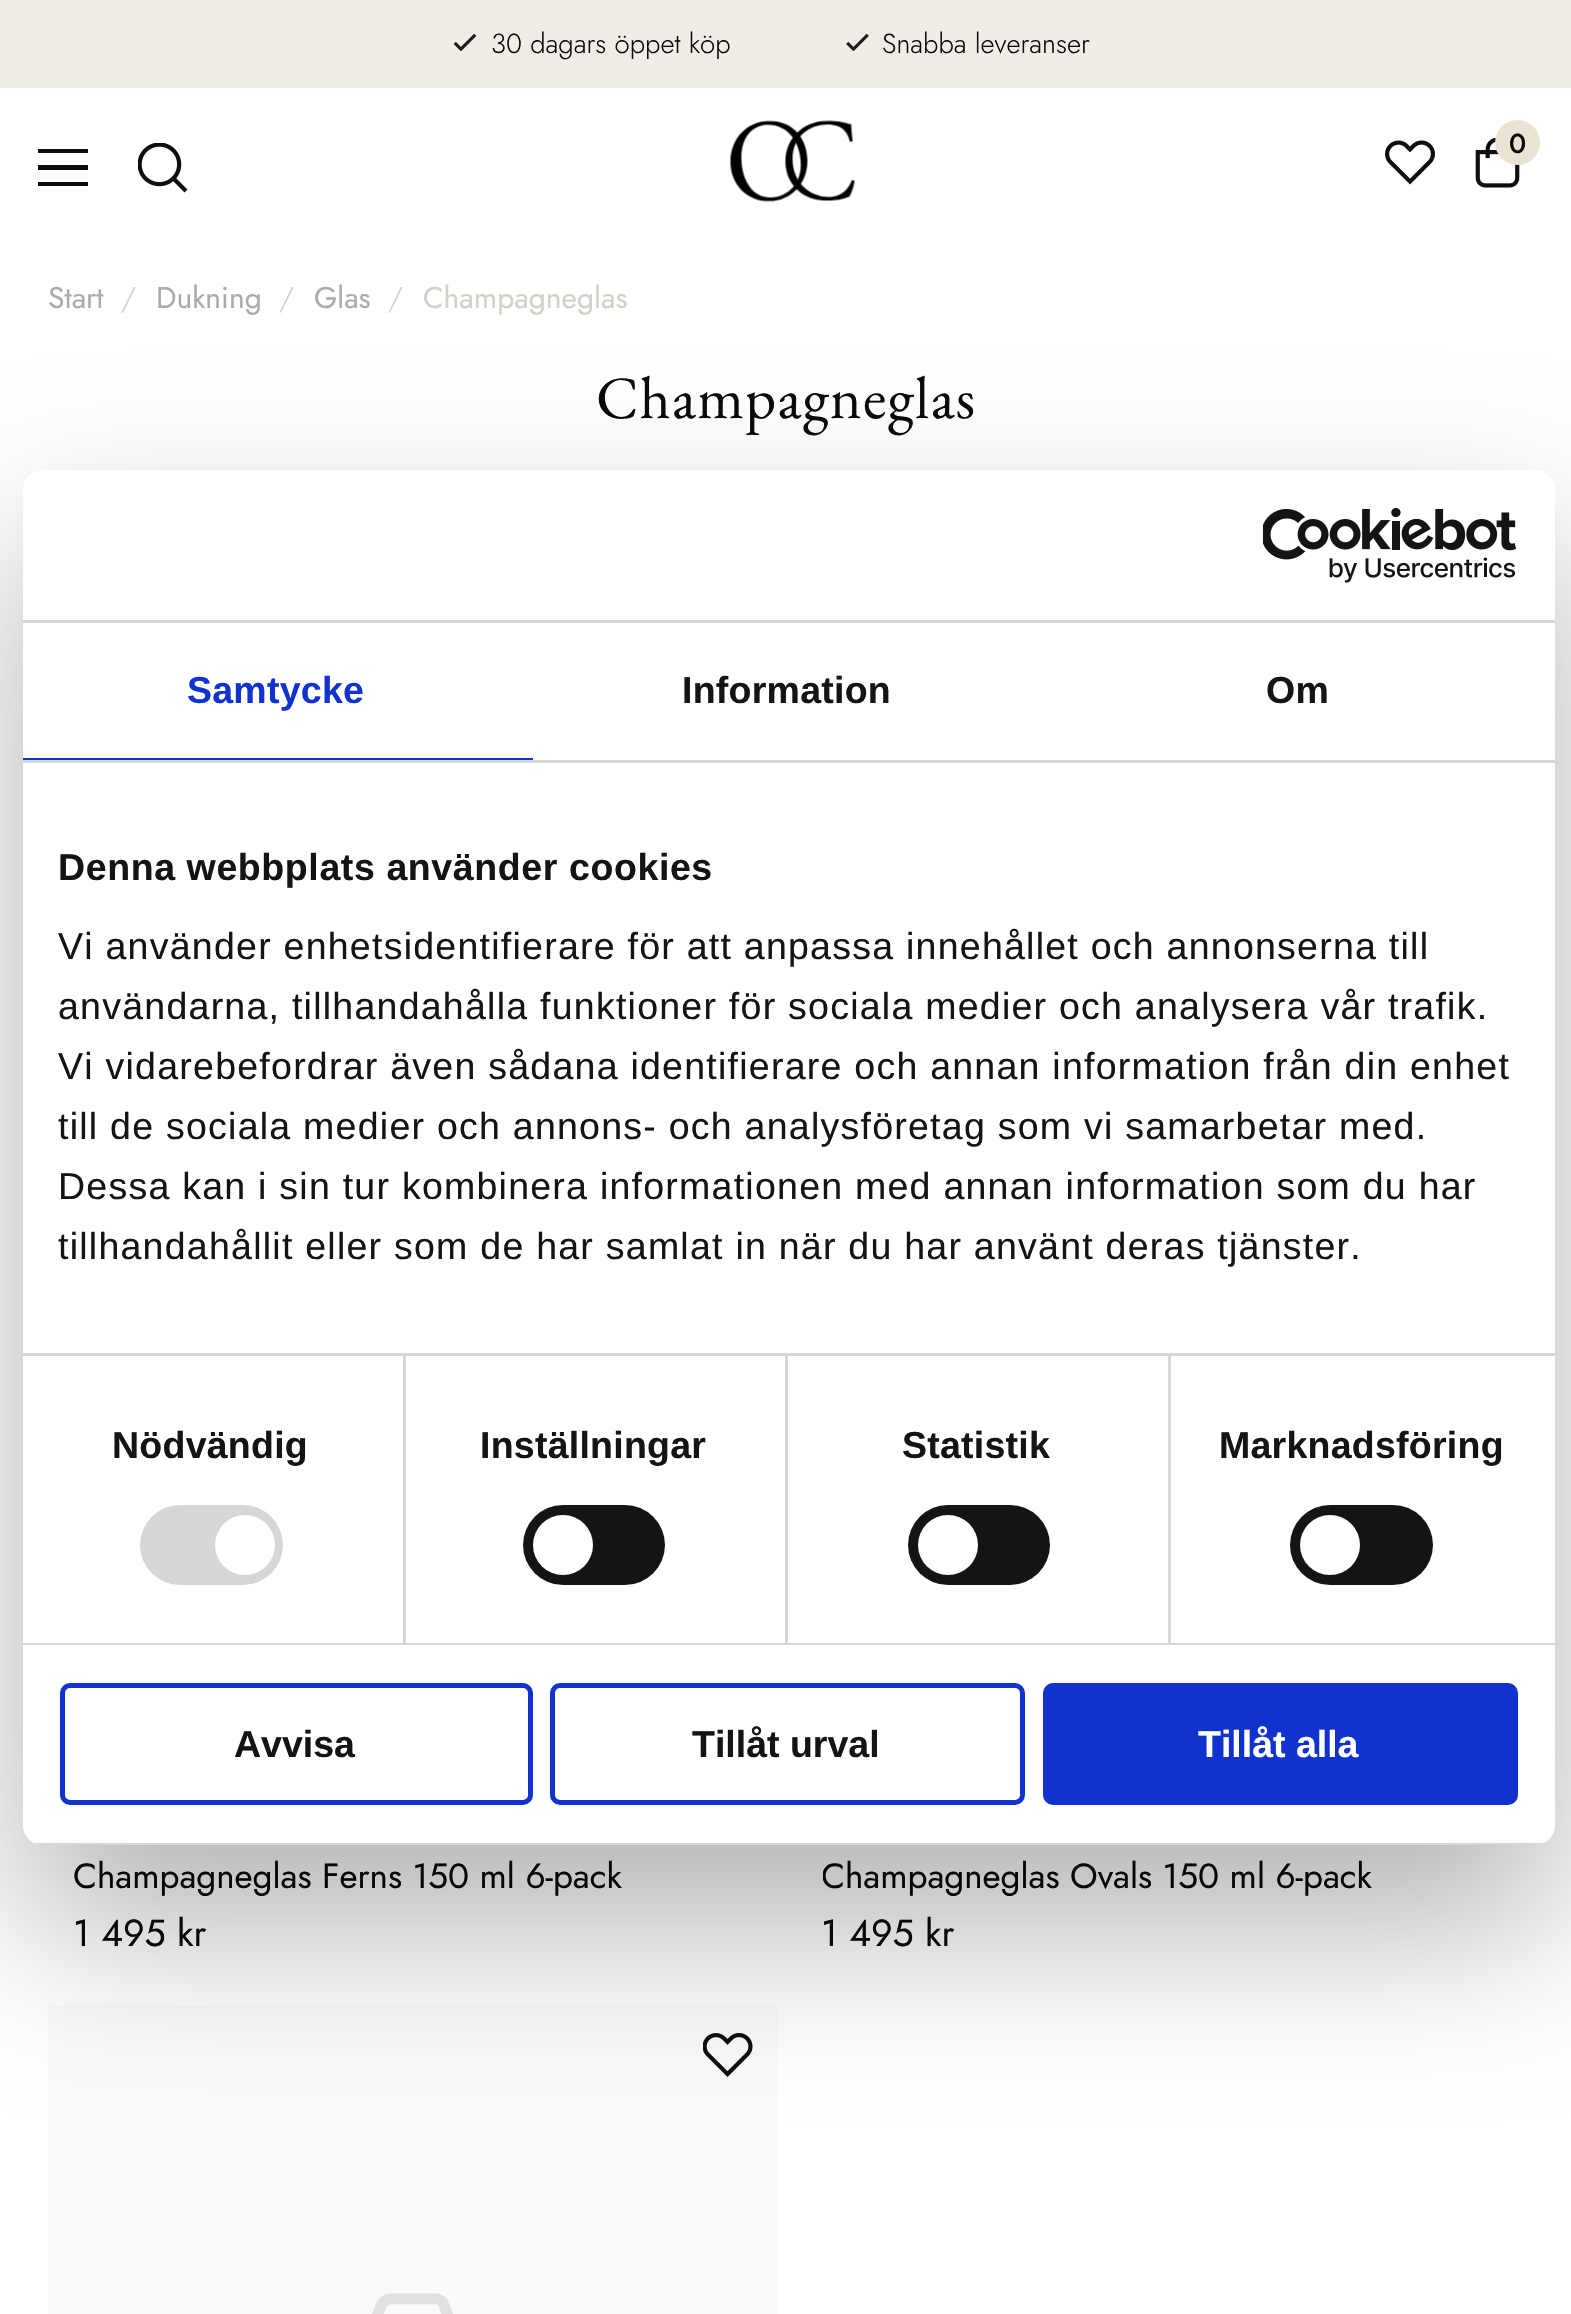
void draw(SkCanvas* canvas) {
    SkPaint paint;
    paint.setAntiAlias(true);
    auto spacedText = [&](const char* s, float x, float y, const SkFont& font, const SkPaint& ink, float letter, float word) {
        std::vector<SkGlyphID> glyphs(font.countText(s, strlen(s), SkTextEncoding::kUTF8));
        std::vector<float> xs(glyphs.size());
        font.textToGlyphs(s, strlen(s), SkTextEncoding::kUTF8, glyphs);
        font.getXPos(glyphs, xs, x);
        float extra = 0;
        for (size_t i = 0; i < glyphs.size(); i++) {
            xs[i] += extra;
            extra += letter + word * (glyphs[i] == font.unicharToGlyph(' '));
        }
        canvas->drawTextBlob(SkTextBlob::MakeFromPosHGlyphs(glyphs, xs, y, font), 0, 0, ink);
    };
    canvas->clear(0xFFFFFFFF);
    paint.setColor(0xFFFAFAFA);
    canvas->drawRect(SkRect::MakeXYWH(48, 2005, 730, 309), paint);
    paint.setColor(0xFFF0EDE6);
    canvas->drawRect(SkRect::MakeXYWH(0, 0, 1571, 88), paint);
    canvas->drawImageRect(SkImages::DeferredFromEncodedData(SkData::MakeFromFileName("img1.png")), SkRect::MakeXYWH(453, 34, 24, 17), SkSamplingOptions());
    SkFont font1(fontMgr->matchFamilyStyle("Jost", SkFontStyle(300, SkFontStyle::kNormal_Width, SkFontStyle::kUpright_Slant)), 27.5f);
    font1.setSubpixel(true);
    paint.setColor(0xFF0A0A0A);
    canvas->drawString("30 dagars öppet köp", 491, 53, font1, paint);
    canvas->drawImageRect(SkImages::DeferredFromEncodedData(SkData::MakeFromFileName("img2.png")), SkRect::MakeXYWH(846, 34, 23, 17), SkSamplingOptions());
    canvas->drawString("Snabba leveranser", 882, 53, font1, paint);
    paint.setColor(0xFF0E0E0E);
    canvas->drawRect(SkRect::MakeXYWH(38, 165, 50, 5), paint);
    canvas->drawRect(SkRect::MakeXYWH(38, 149, 50, 4), paint);
    canvas->drawRect(SkRect::MakeXYWH(38, 182, 50, 4), paint);
    canvas->drawImageRect(SkImages::DeferredFromEncodedData(SkData::MakeFromFileName("img3.png")), SkRect::MakeXYWH(138, 143, 50, 50), SkSamplingOptions());
    canvas->drawImageRect(SkImages::DeferredFromEncodedData(SkData::MakeFromFileName("img4.png")), SkRect::MakeXYWH(730, 120, 125, 82), SkSamplingOptions());
    canvas->drawImageRect(SkImages::DeferredFromEncodedData(SkData::MakeFromFileName("img5.png")), SkRect::MakeXYWH(1385, 140, 50, 45), SkSamplingOptions());
    canvas->drawImageRect(SkImages::DeferredFromEncodedData(SkData::MakeFromFileName("img6.png")), SkRect::MakeXYWH(1475, 138, 45, 50), SkSamplingOptions());
    paint.setColor(0xFFEAE2D2);
    canvas->drawCircle(1517.5f, 142.5f, 22.5f, paint);
    SkFont font2(fontMgr->matchFamilyStyle("Jost", SkFontStyle(500, SkFontStyle::kNormal_Width, SkFontStyle::kUpright_Slant)), 27.5f);
    font2.setSubpixel(true);
    paint.setColor(0xFF0A0A0A);
    canvas->drawString("0", 1509, 153, font2, paint);
    SkFont font3(fontMgr->matchFamilyStyle("Jost", SkFontStyle::Normal()), 30);
    font3.setSubpixel(true);
    paint.setColor(0xFFADABA8);
    canvas->drawString("Start", 48, 308, font3, paint);
    SkFont font4(fontMgr->matchFamilyStyle("Jost", SkFontStyle(300, SkFontStyle::kNormal_Width, SkFontStyle::kUpright_Slant)), 30);
    font4.setSubpixel(true);
    paint.setColor(0xFFD3D0C9);
    spacedText("/", 121, 308, font4, paint, 1.25f, 0);
    paint.setColor(0xFFADABA8);
    canvas->drawString("Dukning", 156, 308, font3, paint);
    paint.setColor(0xFFD3D0C9);
    spacedText("/", 279, 308, font4, paint, 1.25f, 0);
    paint.setColor(0xFFADABA8);
    canvas->drawString("Glas", 314, 308, font3, paint);
    paint.setColor(0xFFD3D0C9);
    spacedText("/", 388, 308, font4, paint, 1.25f, 0);
    canvas->drawString("Champagneglas", 423, 308, font3, paint);
    SkFont font5(fontMgr->matchFamilyStyle("EB Garamond", SkFontStyle::Normal()), 60);
    font5.setSubpixel(true);
    paint.setColor(0xFF0A0A0A);
    spacedText("Champagneglas", 596, 418, font5, paint, 1.25f, 0);
    SkFont font6(fontMgr->matchFamilyStyle("Jost", SkFontStyle::Normal()), 35);
    font6.setSubpixel(true);
    canvas->drawString("Champagneglas Ferns 150 ml 6-pack", 73, 1888, font6, paint);
    SkFont font7(fontMgr->matchFamilyStyle("Jost", SkFontStyle::Normal()), 37.5f);
    font7.setSubpixel(true);
    canvas->drawString("1 495 kr", 73, 1946, font7, paint);
    canvas->save();
    canvas->clipRect(SkRect::MakeXYWH(823, 1845, 702, 60));
    canvas->drawString("Champagneglas Ovals 150 ml 6-pack", 821, 1888, font6, paint);
    canvas->restore();
    canvas->drawString("1 495 kr", 821, 1946, font7, paint);
    canvas->drawImageRect(SkImages::DeferredFromEncodedData(SkData::MakeFromFileName("img7.png")), SkRect::MakeXYWH(703, 2033, 50, 44), SkSamplingOptions());
    canvas->drawImageRect(SkImages::DeferredFromEncodedData(SkData::MakeFromFileName("img8.png")), SkRect::MakeXYWH(372, 2293, 81, 21), SkSamplingOptions());
    canvas->save();
    canvas->clipPath(SkPathBuilder(SkPathFillType::kEvenOdd).moveTo(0, 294).lineTo(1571, 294).lineTo(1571, 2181).lineTo(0, 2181).close().moveTo(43, 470).lineTo(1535, 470).cubicTo(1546, 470, 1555, 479, 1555, 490).lineTo(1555, 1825).cubicTo(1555, 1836, 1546, 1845, 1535, 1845).lineTo(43, 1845).cubicTo(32, 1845, 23, 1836, 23, 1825).lineTo(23, 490).cubicTo(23, 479, 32, 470, 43, 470).close().detach(), true);
    paint.setColor(0x4D000000);
    paint.setMaskFilter(SkMaskFilter::MakeBlur(kNormal_SkBlurStyle, 85));
    canvas->drawRoundRect(SkRect::MakeXYWH(23, 550, 1532, 1375), 20, 20, paint);
    paint.setMaskFilter(nullptr);
    canvas->restore();
    paint.setColor(0xFFFFFFFF);
    canvas->drawRoundRect(SkRect::MakeXYWH(23, 470, 1532, 1375), 20, 20, paint);
    paint.setColor(0xFFD6D6D6);
    canvas->drawRect(SkRect::MakeXYWH(23, 620, 1532, 3), paint);
    canvas->drawImageRect(SkImages::DeferredFromEncodedData(SkData::MakeFromFileName("img9.png")), SkRect::MakeXYWH(1263, 508, 253, 75), SkSamplingOptions());
    canvas->drawRect(SkRect::MakeXYWH(23, 760, 1532, 3), paint);
    paint.setColor(0xFF1032CF);
    canvas->drawRect(SkRect::MakeXYWH(23, 758, 510, 2), paint);
    SkFont font8(fontMgr->matchFamilyStyle("Liberation Sans", SkFontStyle::Bold()), 37.5f);
    font8.setSubpixel(true);
    spacedText("Samtycke", 187, 703, font8, paint, 0.25f, 0);
    paint.setColor(0xFF141414);
    spacedText("Information", 682, 703, font8, paint, 0.25f, 0);
    spacedText("Om", 1266, 703, font8, paint, 0.25f, 0);
    paint.setColor(0xFFD6D6D6);
    canvas->drawRect(SkRect::MakeXYWH(403, 1355, 3, 288), paint);
    canvas->drawRect(SkRect::MakeXYWH(785, 1355, 3, 288), paint);
    canvas->drawRect(SkRect::MakeXYWH(1168, 1355, 3, 288), paint);
    canvas->drawRect(SkRect::MakeXYWH(23, 1353, 1532, 3), paint);
    paint.setColor(0xFF141414);
    spacedText("Denna webbplats använder cookies", 58, 880, font8, paint, 0.6f, 0);
    SkFont font9(fontMgr->matchFamilyStyle("Liberation Sans", SkFontStyle::Normal()), 37.5f);
    font9.setSubpixel(true);
    spacedText("Vi använder enhetsidentifierare för att anpassa innehållet och annonserna till", 58, 959, font9, paint, 1.25f, 0);
    spacedText("användarna, tillhandahålla funktioner för sociala medier och analysera vår trafik.", 58, 1019, font9, paint, 1.25f, 0);
    spacedText("Vi vidarebefordrar även sådana identifierare och annan information från din enhet", 58, 1079, font9, paint, 1.25f, 0);
    spacedText("till de sociala medier och annons- och analysföretag som vi samarbetar med.", 58, 1139, font9, paint, 1.25f, 0);
    spacedText("Dessa kan i sin tur kombinera informationen med annan information som du har", 58, 1199, font9, paint, 1.25f, 0);
    spacedText("tillhandahållit eller som de har samlat in när du har använt deras tjänster.", 58, 1259, font9, paint, 1.25f, 0);
    paint.setColor(0xFFD6D6D6);
    canvas->drawRect(SkRect::MakeXYWH(23, 1643, 1532, 2), paint);
    paint.setColor(0xFF141414);
    spacedText("Nödvändig", 112, 1458, font8, paint, 0.25f, 0);
    paint.setColor(0xFFD6D6D6);
    canvas->drawRoundRect(SkRect::MakeXYWH(140, 1505, 143, 80), 40, 40, paint);
    paint.setColor(0xFFFFFFFF);
    canvas->drawCircle(245, 1545, 30, paint);
    paint.setColor(0xFF141414);
    spacedText("Inställningar", 480, 1458, font8, paint, 0.25f, 0);
    canvas->drawRoundRect(SkRect::MakeXYWH(523, 1505, 142, 80), 40, 40, paint);
    paint.setColor(0xFFFFFFFF);
    canvas->drawCircle(563, 1545, 30, paint);
    paint.setColor(0xFF141414);
    spacedText("Statistik", 902, 1458, font8, paint, 0.25f, 0);
    canvas->drawRoundRect(SkRect::MakeXYWH(908, 1505, 142, 80), 40, 40, paint);
    paint.setColor(0xFFFFFFFF);
    canvas->drawCircle(948, 1545, 30, paint);
    paint.setColor(0xFF141414);
    spacedText("Marknadsföring", 1219, 1458, font8, paint, 0.25f, 0);
    canvas->drawRoundRect(SkRect::MakeXYWH(1290, 1505, 143, 80), 40, 40, paint);
    paint.setColor(0xFFFFFFFF);
    canvas->drawCircle(1330, 1545, 30, paint);
    canvas->save();
    canvas->clipPath(SkPathBuilder().moveTo(43, 470).lineTo(1535, 470).cubicTo(1546, 470, 1555, 479, 1555, 490).lineTo(1555, 1825).cubicTo(1555, 1836, 1546, 1845, 1535, 1845).lineTo(43, 1845).cubicTo(32, 1845, 23, 1836, 23, 1825).lineTo(23, 490).cubicTo(23, 479, 32, 470, 43, 470).close().detach(), true);
    paint.setColor(0xFFD6D6D6);
    canvas->drawRect(SkRect::MakeXYWH(34, 1843, 1510, 2), paint);
    canvas->restore();
    paint.setStyle(SkPaint::kStroke_Style);
    paint.setStrokeWidth(5);
    paint.setColor(0xFF1032CF);
    canvas->drawRoundRect(SkRect::MakeXYWH(62.5f, 1685.5f, 468, 117), 7.5f, 7.5f, paint);
    paint.setStyle(SkPaint::kFill_Style);
    paint.setColor(0xFF141414);
    canvas->drawString("Avvisa", 234, 1757, font8, paint);
    paint.setStyle(SkPaint::kStroke_Style);
    paint.setColor(0xFF1032CF);
    canvas->drawRoundRect(SkRect::MakeXYWH(552.5f, 1685.5f, 470, 117), 7.5f, 7.5f, paint);
    paint.setStyle(SkPaint::kFill_Style);
    paint.setColor(0xFF141414);
    canvas->drawString("Tillåt urval", 692, 1757, font8, paint);
    paint.setColor(0xFF1032CF);
    canvas->drawRoundRect(SkRect::MakeXYWH(1045.5f, 1685.5f, 470, 117), 7.5f, 7.5f, paint);
    paint.setStyle(SkPaint::kStroke_Style);
    canvas->drawRoundRect(SkRect::MakeXYWH(1045.5f, 1685.5f, 470, 117), 7.5f, 7.5f, paint);
    paint.setStyle(SkPaint::kFill_Style);
    paint.setColor(0xFFFFFFFF);
    canvas->drawString("Tillåt alla", 1198, 1757, font8, paint);
}
